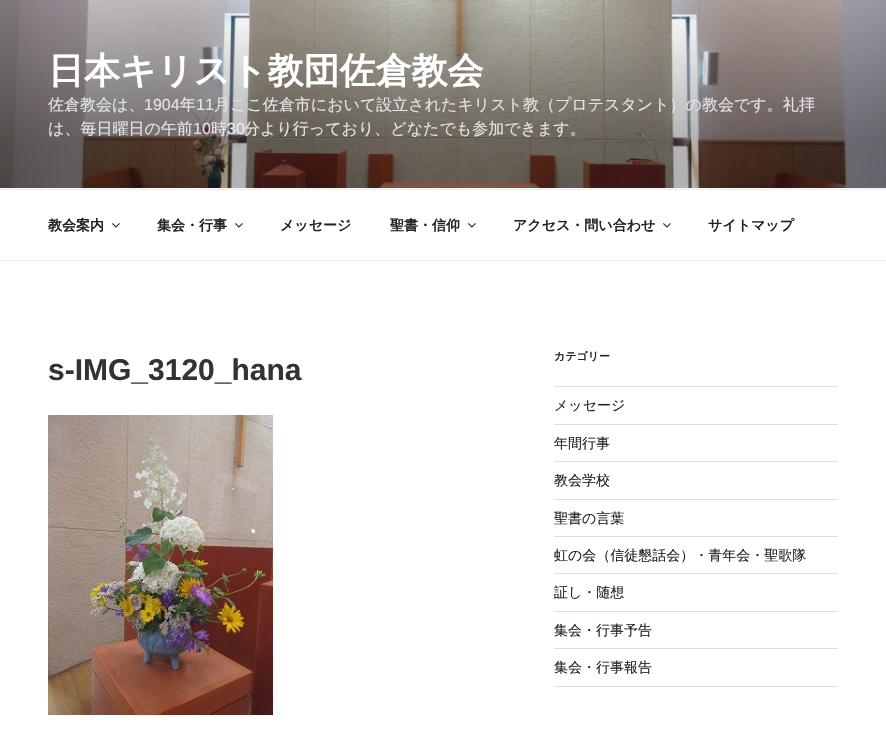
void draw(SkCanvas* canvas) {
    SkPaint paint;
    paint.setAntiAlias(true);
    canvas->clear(0xFFFFFFFF);
    paint.setColor(0xFFFAFAFA);
    canvas->drawRect(SkRect::MakeXYWH(0, 188, 886, 1), paint);
    canvas->drawImageRect(SkImages::DeferredFromEncodedData(SkData::MakeFromFileName("img1.png")), SkRect::MakeXYWH(0, 0, 886, 188), SkSamplingOptions());
    SkFont font1(fontMgr->matchFamilyStyle("WenQuanYi Zen Hei", SkFontStyle::Bold()), 36);
    font1.setSubpixel(true);
    paint.setColor(0xFFFFFFFF);
    canvas->drawString("日本キリスト教団佐倉教会", 48, 83, font1, paint);
    SkFont font2(fontMgr->matchFamilyStyle("WenQuanYi Zen Hei", SkFontStyle(500, SkFontStyle::kNormal_Width, SkFontStyle::kUpright_Slant)), 16);
    font2.setSubpixel(true);
    paint.setColor(0xFFE4E3E4);
    canvas->drawString("佐倉教会は、", 48, 110, font2, paint);
    SkFont font3(fontMgr->matchFamilyStyle("Liberation Sans", SkFontStyle::Normal()), 16);
    font3.setSubpixel(true);
    canvas->drawString("1904", 144, 110, font3, paint);
    canvas->drawString("年", 180, 110, font2, paint);
    canvas->drawString("11", 196, 110, font3, paint);
    canvas->drawString("月ここ佐倉市において設立されたキリスト教（プロテスタント）の教会です。礼拝", 214, 110, font2, paint);
    canvas->drawString("は、毎日曜日の午前", 48, 134, font2, paint);
    canvas->drawString("10", 193, 134, font3, paint);
    canvas->drawString("時", 211, 134, font2, paint);
    paint.setColor(0xFFEBECEC);
    canvas->drawString("30", 227, 134, font3, paint);
    paint.setColor(0xFFE4E3E4);
    canvas->drawString("分より行っており、どなたでも参加できます。", 244, 134, font2, paint);
    paint.setColor(0xFFEEEEEE);
    canvas->drawRect(SkRect::MakeXYWH(0, 189, 886, 1), paint);
    canvas->drawRect(SkRect::MakeXYWH(0, 260, 886, 1), paint);
    SkFont font4(fontMgr->matchFamilyStyle("WenQuanYi Zen Hei", SkFontStyle::Bold()), 14);
    font4.setSubpixel(true);
    paint.setColor(0xFF222222);
    canvas->drawString("教会案内", 48, 230, font4, paint);
    canvas->drawImageRect(SkImages::DeferredFromEncodedData(SkData::MakeFromFileName("img2.png")), SkRect::MakeXYWH(112, 223, 8, 5), SkSamplingOptions());
    canvas->drawString("集会・行事", 157, 230, font4, paint);
    canvas->drawImageRect(SkImages::DeferredFromEncodedData(SkData::MakeFromFileName("img2.png")), SkRect::MakeXYWH(235, 223, 8, 5), SkSamplingOptions());
    canvas->drawString("メッセージ", 280, 230, font4, paint);
    canvas->drawString("聖書・信仰", 390, 230, font4, paint);
    canvas->drawImageRect(SkImages::DeferredFromEncodedData(SkData::MakeFromFileName("img2.png")), SkRect::MakeXYWH(468, 223, 8, 5), SkSamplingOptions());
    canvas->drawString("アクセス・問い合わせ", 513, 230, font4, paint);
    canvas->drawImageRect(SkImages::DeferredFromEncodedData(SkData::MakeFromFileName("img2.png")), SkRect::MakeXYWH(663, 223, 8, 5), SkSamplingOptions());
    canvas->drawString("サイトマップ", 708, 230, font4, paint);
    SkFont font5(fontMgr->matchFamilyStyle("Liberation Sans", SkFontStyle::Bold()), 30);
    font5.setSubpixel(true);
    paint.setColor(0xFF333333);
    canvas->drawString("s-IMG_3120_hana", 48, 380, font5, paint);
    canvas->drawImageRect(SkImages::DeferredFromEncodedData(SkData::MakeFromFileName("img3.png")), SkRect::MakeXYWH(48, 415, 225, 300), SkSamplingOptions());
    SkFont font6(fontMgr->matchFamilyStyle("WenQuanYi Zen Hei", SkFontStyle::Bold()), 11);
    font6.setSubpixel(true);
    paint.setColor(0xFF222222);
    canvas->drawString("カテゴリー", 554, 360, font6, paint);
    paint.setColor(0xFFDDDDDD);
    canvas->drawRect(SkRect::MakeXYWH(554, 386, 284, 1), paint);
    canvas->drawRect(SkRect::MakeXYWH(554, 424, 284, 1), paint);
    SkFont font7(fontMgr->matchFamilyStyle("WenQuanYi Zen Hei", SkFontStyle(500, SkFontStyle::kNormal_Width, SkFontStyle::kUpright_Slant)), 14);
    font7.setSubpixel(true);
    paint.setColor(0xFF222222);
    canvas->drawString("メッセージ", 554, 410, font7, paint);
    paint.setColor(0xFFDDDDDD);
    canvas->drawRect(SkRect::MakeXYWH(554, 461, 284, 1), paint);
    paint.setColor(0xFF222222);
    canvas->drawString("年間行事", 554, 448, font7, paint);
    paint.setColor(0xFFDDDDDD);
    canvas->drawRect(SkRect::MakeXYWH(554, 499, 284, 1), paint);
    paint.setColor(0xFF222222);
    canvas->drawString("教会学校", 554, 485, font7, paint);
    paint.setColor(0xFFDDDDDD);
    canvas->drawRect(SkRect::MakeXYWH(554, 536, 284, 1), paint);
    paint.setColor(0xFF222222);
    canvas->drawString("聖書の言葉", 554, 523, font7, paint);
    paint.setColor(0xFFDDDDDD);
    canvas->drawRect(SkRect::MakeXYWH(554, 573, 284, 1), paint);
    paint.setColor(0xFF222222);
    canvas->drawString("虹の会（信徒懇話会）・青年会・聖歌隊", 554, 560, font7, paint);
    paint.setColor(0xFFDDDDDD);
    canvas->drawRect(SkRect::MakeXYWH(554, 611, 284, 1), paint);
    paint.setColor(0xFF222222);
    canvas->drawString("証し・随想", 554, 597, font7, paint);
    paint.setColor(0xFFDDDDDD);
    canvas->drawRect(SkRect::MakeXYWH(554, 648, 284, 1), paint);
    paint.setColor(0xFF222222);
    canvas->drawString("集会・行事予告", 554, 635, font7, paint);
    paint.setColor(0xFFDDDDDD);
    canvas->drawRect(SkRect::MakeXYWH(554, 686, 284, 1), paint);
    paint.setColor(0xFF222222);
    canvas->drawString("集会・行事報告", 554, 672, font7, paint);
}
